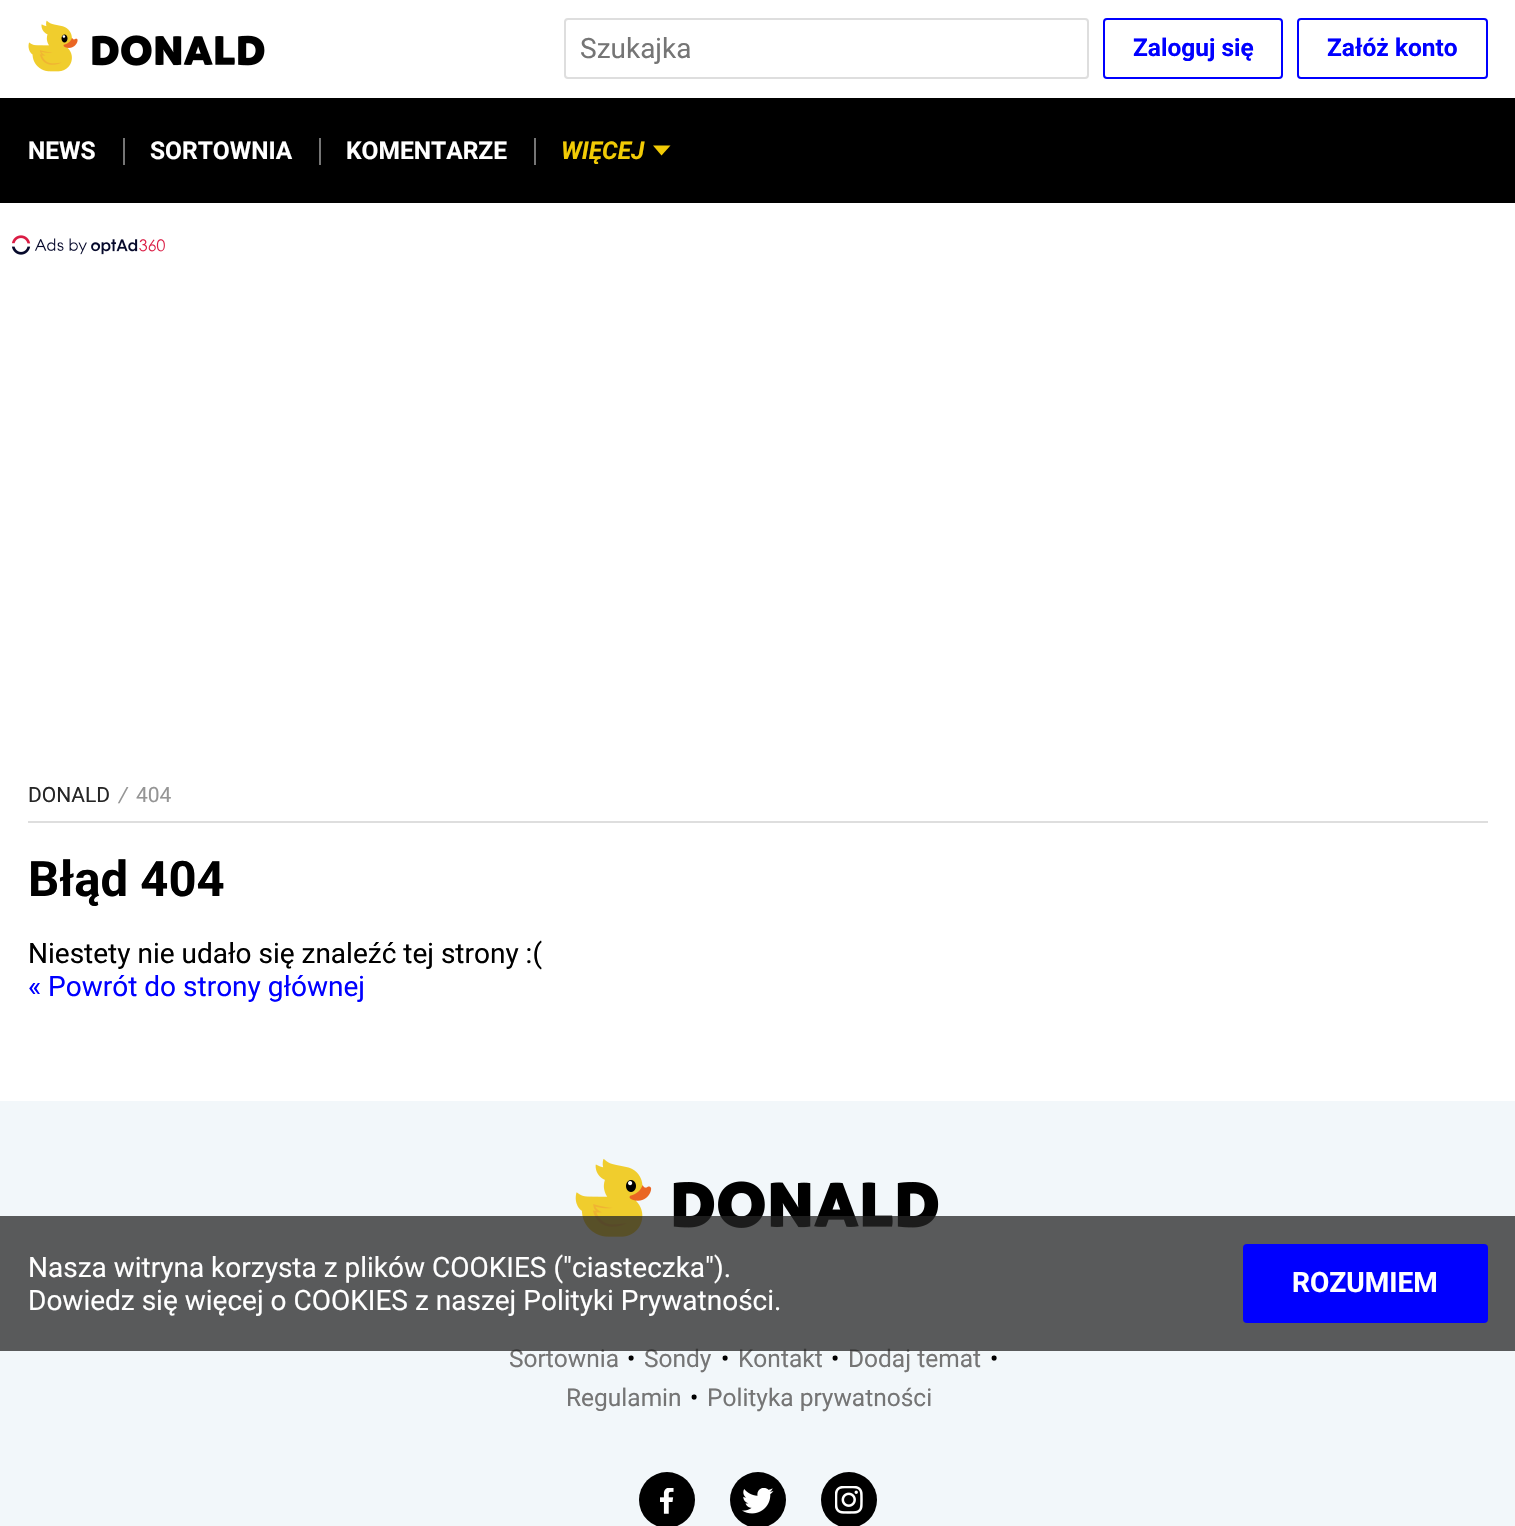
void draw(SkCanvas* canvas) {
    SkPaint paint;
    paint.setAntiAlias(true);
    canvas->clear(0xFFFFFFFF);
    canvas->drawImageRect(SkImages::DeferredFromEncodedData(SkData::MakeFromFileName("img1.png")), SkRect::MakeXYWH(28, 20, 237, 52), SkSamplingOptions());
    paint.setStyle(SkPaint::kStroke_Style);
    paint.setStrokeWidth(2);
    paint.setColor(0xFFDEDEDE);
    canvas->drawRoundRect(SkRect::MakeXYWH(565, 19, 523, 59), 3, 3, paint);
    SkFont font1(fontMgr->matchFamilyStyle("Roboto", SkFontStyle::Normal()), 28);
    font1.setSubpixel(true);
    paint.setStyle(SkPaint::kFill_Style);
    paint.setColor(0xFF757575);
    canvas->drawString("Szukajka", 580, 58, font1, paint);
    paint.setStyle(SkPaint::kStroke_Style);
    paint.setColor(0xFF0000FF);
    canvas->drawRoundRect(SkRect::MakeXYWH(1104, 19, 178, 59), 3, 3, paint);
    SkFont font2(fontMgr->matchFamilyStyle("Roboto", SkFontStyle::Bold()), 24.5f);
    font2.setSubpixel(true);
    paint.setStyle(SkPaint::kFill_Style);
    canvas->drawString("Zaloguj się", 1133, 56, font2, paint);
    paint.setStyle(SkPaint::kStroke_Style);
    canvas->drawRoundRect(SkRect::MakeXYWH(1298, 19, 189, 59), 3, 3, paint);
    paint.setStyle(SkPaint::kFill_Style);
    canvas->drawString("Załóż konto", 1327, 56, font2, paint);
    paint.setColor(0xFF000000);
    canvas->drawRect(SkRect::MakeXYWH(0, 98, 1515, 105), paint);
    paint.setColor(0xFFFFFFFF);
    canvas->drawString("NEWS", 28, 159, font2, paint);
    paint.setColor(0xFF757575);
    canvas->drawRect(SkRect::MakeXYWH(123, 138, 2, 27), paint);
    paint.setColor(0xFFFFFFFF);
    canvas->drawString("SORTOWNIA", 150, 159, font2, paint);
    paint.setColor(0xFF757575);
    canvas->drawRect(SkRect::MakeXYWH(319, 138, 2, 27), paint);
    paint.setColor(0xFFFFFFFF);
    canvas->drawString("KOMENTARZE", 346, 159, font2, paint);
    paint.setColor(0xFF757575);
    canvas->drawRect(SkRect::MakeXYWH(534, 138, 2, 27), paint);
    SkFont font3(fontMgr->matchFamilyStyle("Roboto", SkFontStyle::BoldItalic()), 24.5f);
    font3.setSubpixel(true);
    paint.setColor(0xFFF2CB05);
    canvas->drawString("WIĘCEJ", 561, 159, font3, paint);
    canvas->drawPath(SkPathBuilder().moveTo(653, 145.5f).lineTo(670.5f, 145.5f).lineTo(661.5f, 155.5f).close().detach(), paint);
    canvas->drawImageRect(SkImages::DeferredFromEncodedData(SkData::MakeFromFileName("img2.png")), SkRect::MakeXYWH(11, 235, 154, 20), SkSamplingOptions());
    paint.setColor(0xFFDEDEDE);
    canvas->drawRect(SkRect::MakeXYWH(28, 821, 1460, 2), paint);
    SkFont font4(fontMgr->matchFamilyStyle("Roboto", SkFontStyle::Normal()), 21);
    font4.setSubpixel(true);
    paint.setColor(0xFF262626);
    canvas->drawString("DONALD", 28, 802, font4, paint);
    SkFont font5(fontMgr->matchFamilyStyle("Roboto", SkFontStyle::Italic()), 21);
    font5.setSubpixel(true);
    paint.setColor(0xFF959595);
    canvas->drawString("/", 119, 802, font5, paint);
    canvas->drawString("404", 136, 802, font4, paint);
    SkFont font6(fontMgr->matchFamilyStyle("Roboto", SkFontStyle::Bold()), 49);
    font6.setSubpixel(true);
    paint.setColor(0xFF000000);
    canvas->drawString("Błąd 404", 28, 896, font6, paint);
    canvas->drawString("Niestety nie udało się znaleźć tej strony :(", 28, 963, font1, paint);
    paint.setColor(0xFF0000FF);
    canvas->drawString("« Powrót do strony głównej", 28, 996, font1, paint);
    paint.setColor(0xFFF2F7FA);
    canvas->drawRect(SkRect::MakeXYWH(0, 1101, 1515, 425), paint);
    canvas->drawImageRect(SkImages::DeferredFromEncodedData(SkData::MakeFromFileName("img3.png")), SkRect::MakeXYWH(575, 1158, 364, 79), SkSamplingOptions());
    SkFont font7(fontMgr->matchFamilyStyle("Roboto", SkFontStyle::Normal()), 24.5f);
    font7.setSubpixel(true);
    paint.setColor(0xFF757575);
    canvas->drawString("Sortownia", 509, 1367, font7, paint);
    canvas->drawString("Sondy", 644, 1367, font7, paint);
    canvas->drawString("Kontakt", 738, 1367, font7, paint);
    canvas->drawString("Dodaj temat", 848, 1367, font7, paint);
    paint.setColor(0xBF262626);
    canvas->drawRect(SkRect::MakeXYWH(0, 1216, 1515, 135), paint);
    paint.setColor(0xFFFFFFFF);
    canvas->drawString("Nasza witryna korzysta z plików COOKIES (\"ciasteczka\").", 28, 1277, font1, paint);
    canvas->drawString("Dowiedz się więcej o COOKIES z naszej Polityki Prywatności.", 28, 1310, font1, paint);
    paint.setColor(0xFF0000FF);
    canvas->drawRoundRect(SkRect::MakeXYWH(1243, 1244, 245, 79), 4, 4, paint);
    SkFont font8(fontMgr->matchFamilyStyle("Roboto", SkFontStyle::Bold()), 28);
    font8.setSubpixel(true);
    paint.setColor(0xFFFFFFFF);
    canvas->drawString("ROZUMIEM", 1292, 1292, font8, paint);
    paint.setColor(0xFF000000);
    canvas->drawString("•", 627, 1367, font7, paint);
    canvas->drawString("•", 721, 1367, font7, paint);
    canvas->drawString("•", 831, 1367, font7, paint);
    canvas->drawString("•", 990, 1367, font7, paint);
    paint.setColor(0xFF757575);
    canvas->drawString("Regulamin", 566, 1406, font7, paint);
    paint.setColor(0xFF000000);
    canvas->drawString("•", 690, 1406, font7, paint);
    paint.setColor(0xFF757575);
    canvas->drawString("Polityka prywatności", 707, 1406, font7, paint);
    paint.setColor(0xFF000000);
    canvas->drawCircle(667, 1500, 28, paint);
    canvas->drawImageRect(SkImages::DeferredFromEncodedData(SkData::MakeFromFileName("img4.png")), SkRect::MakeXYWH(660, 1488, 14, 26), SkSamplingOptions());
    canvas->drawCircle(758, 1500, 28, paint);
    canvas->drawImageRect(SkImages::DeferredFromEncodedData(SkData::MakeFromFileName("img5.png")), SkRect::MakeXYWH(742, 1488, 32, 26), SkSamplingOptions());
    canvas->drawCircle(849, 1500, 28, paint);
    canvas->drawImageRect(SkImages::DeferredFromEncodedData(SkData::MakeFromFileName("img6.png")), SkRect::MakeXYWH(835, 1486, 28, 28), SkSamplingOptions());
}
